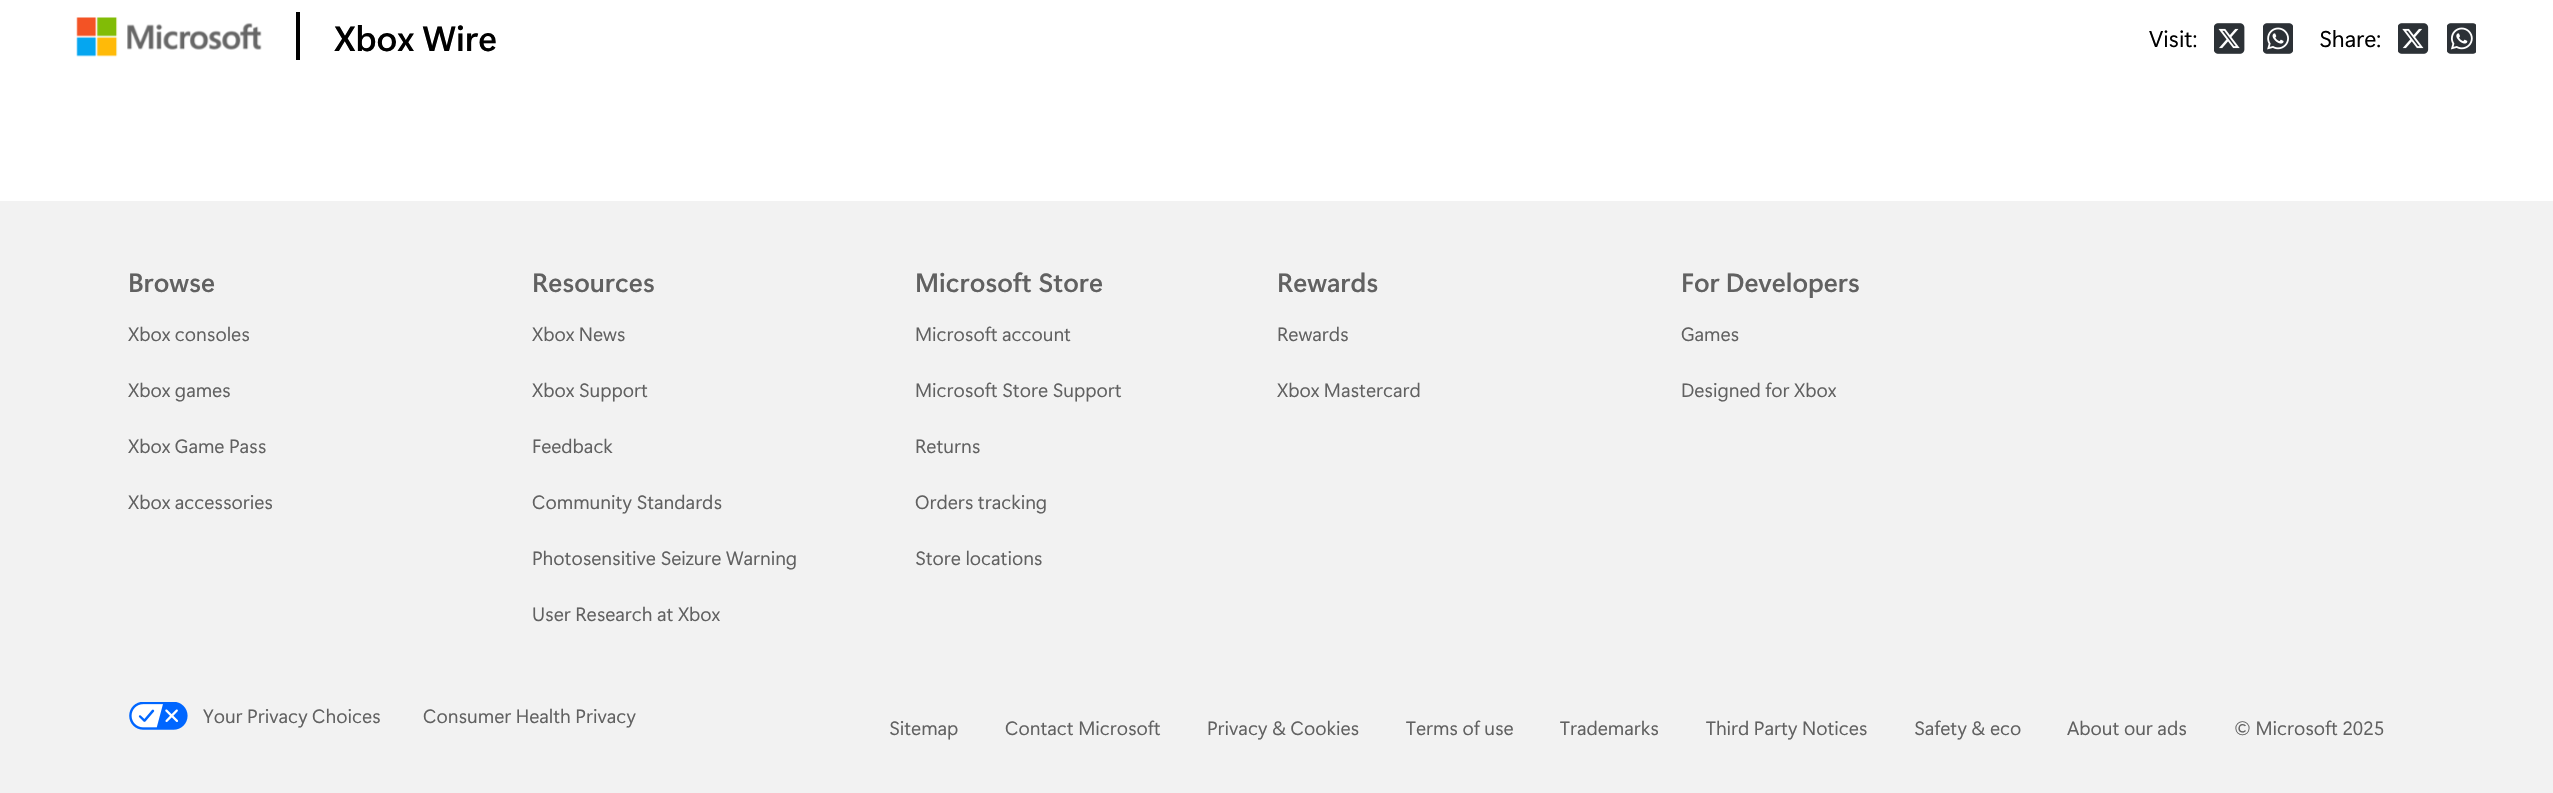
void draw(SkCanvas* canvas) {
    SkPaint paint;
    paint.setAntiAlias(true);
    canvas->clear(0xFFFFFFFF);
    canvas->drawImageRect(SkImages::DeferredFromEncodedData(SkData::MakeFromFileName("img1.png")), SkRect::MakeXYWH(76, 17, 186, 40), SkSamplingOptions());
    SkFont font1(fontMgr->matchFamilyStyle("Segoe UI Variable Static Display", SkFontStyle(600, SkFontStyle::kNormal_Width, SkFontStyle::kUpright_Slant)), 35);
    font1.setSubpixel(true);
    paint.setColor(0xFF000000);
    canvas->drawString("Xbox Wire", 334, 51, font1, paint);
    canvas->drawRect(SkRect::MakeXYWH(296, 12, 4, 48), paint);
    SkFont font2(fontMgr->matchFamilyStyle("Segoe UI Variable Static Display", SkFontStyle::Normal()), 23);
    font2.setSubpixel(true);
    canvas->drawString("Visit:", 2149, 47, font2, paint);
    canvas->drawImageRect(SkImages::DeferredFromEncodedData(SkData::MakeFromFileName("img2.png")), SkRect::MakeXYWH(2214, 23, 31, 31), SkSamplingOptions());
    canvas->drawImageRect(SkImages::DeferredFromEncodedData(SkData::MakeFromFileName("img3.png")), SkRect::MakeXYWH(2263, 23, 30, 31), SkSamplingOptions());
    canvas->drawString("Share:", 2319, 47, font2, paint);
    canvas->drawImageRect(SkImages::DeferredFromEncodedData(SkData::MakeFromFileName("img4.png")), SkRect::MakeXYWH(2398, 23, 31, 31), SkSamplingOptions());
    canvas->drawImageRect(SkImages::DeferredFromEncodedData(SkData::MakeFromFileName("img5.png")), SkRect::MakeXYWH(2447, 23, 29, 31), SkSamplingOptions());
    paint.setColor(0xFFF2F2F2);
    canvas->drawRect(SkRect::MakeXYWH(0, 201, 2553, 592), paint);
    SkFont font3(fontMgr->matchFamilyStyle("Segoe UI Variable Static Display", SkFontStyle(600, SkFontStyle::kNormal_Width, SkFontStyle::kUpright_Slant)), 26.25f);
    font3.setSubpixel(true);
    paint.setColor(0xFF616161);
    canvas->drawString("Browse", 128, 292, font3, paint);
    SkFont font4(fontMgr->matchFamilyStyle("Segoe UI Variable Static Display", SkFontStyle::Normal()), 19.25f);
    font4.setSubpixel(true);
    canvas->drawString("Xbox consoles", 128, 341, font4, paint);
    canvas->drawString("Xbox games", 128, 397, font4, paint);
    canvas->drawString("Xbox Game Pass", 128, 453, font4, paint);
    canvas->drawString("Xbox accessories", 128, 509, font4, paint);
    canvas->drawString("Resources", 532, 292, font3, paint);
    canvas->drawString("Xbox News", 532, 341, font4, paint);
    canvas->drawString("Xbox Support", 532, 397, font4, paint);
    canvas->drawString("Feedback", 532, 453, font4, paint);
    canvas->drawString("Community Standards", 532, 509, font4, paint);
    canvas->drawString("Photosensitive Seizure Warning", 532, 565, font4, paint);
    canvas->drawString("User Research at Xbox", 532, 621, font4, paint);
    canvas->drawString("Microsoft Store", 915, 292, font3, paint);
    canvas->drawString("Microsoft account", 915, 341, font4, paint);
    canvas->drawString("Microsoft Store Support", 915, 397, font4, paint);
    canvas->drawString("Returns", 915, 453, font4, paint);
    canvas->drawString("Orders tracking", 915, 509, font4, paint);
    canvas->drawString("Store locations", 915, 565, font4, paint);
    canvas->drawString("Rewards", 1277, 292, font3, paint);
    canvas->drawString("Rewards", 1277, 341, font4, paint);
    canvas->drawString("Xbox Mastercard", 1277, 397, font4, paint);
    canvas->drawString("For Developers", 1681, 292, font3, paint);
    canvas->drawString("Games", 1681, 341, font4, paint);
    canvas->drawString("Designed for Xbox", 1681, 397, font4, paint);
    canvas->drawImageRect(SkImages::DeferredFromEncodedData(SkData::MakeFromFileName("img6.png")), SkRect::MakeXYWH(129, 702, 59, 28), SkSamplingOptions());
    canvas->drawString("Your Privacy Choices", 203, 723, font4, paint);
    canvas->drawString("Consumer Health Privacy", 423, 723, font4, paint);
    canvas->drawString("Sitemap", 889, 735, font4, paint);
    canvas->drawString("Contact Microsoft", 1005, 735, font4, paint);
    canvas->drawString("Privacy & Cookies", 1207, 735, font4, paint);
    canvas->drawString("Terms of use", 1406, 735, font4, paint);
    canvas->drawString("Trademarks", 1560, 735, font4, paint);
    canvas->drawString("Third Party Notices", 1706, 735, font4, paint);
    canvas->drawString("Safety & eco", 1914, 735, font4, paint);
    canvas->drawString("About our ads", 2067, 735, font4, paint);
    canvas->drawString("© Microsoft 2025", 2234, 735, font4, paint);
}
